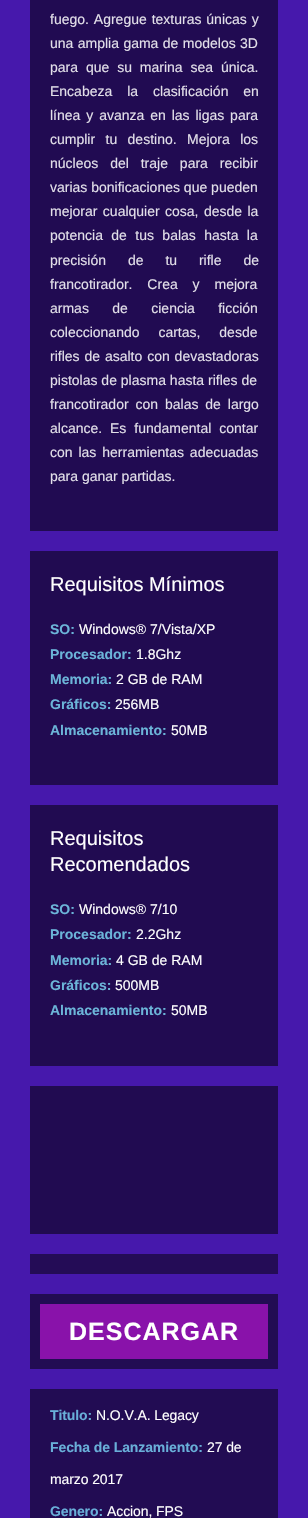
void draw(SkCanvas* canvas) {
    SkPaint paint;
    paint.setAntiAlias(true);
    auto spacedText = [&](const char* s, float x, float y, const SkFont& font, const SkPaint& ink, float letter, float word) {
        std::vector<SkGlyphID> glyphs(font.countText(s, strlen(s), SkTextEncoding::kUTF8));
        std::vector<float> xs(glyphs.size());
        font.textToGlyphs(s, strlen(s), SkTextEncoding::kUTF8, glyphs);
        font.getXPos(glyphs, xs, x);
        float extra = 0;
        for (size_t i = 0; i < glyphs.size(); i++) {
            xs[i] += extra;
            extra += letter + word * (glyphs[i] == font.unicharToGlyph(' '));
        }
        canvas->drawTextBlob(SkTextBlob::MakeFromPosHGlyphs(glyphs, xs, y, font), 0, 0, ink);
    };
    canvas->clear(0xFF4618AC);
    paint.setColor(0xFF210B52);
    canvas->drawRect(SkRect::MakeXYWH(30, 0, 248, 531), paint);
    SkFont font1(fontMgr->matchFamilyStyle("Liberation Sans", SkFontStyle::Normal()), 14);
    font1.setSubpixel(true);
    paint.setColor(0xFFE2DFE9);
    spacedText("fuego. Agregue texturas únicas y", 50, 24, font1, paint, 0, 1);
    spacedText("una amplia gama de modelos 3D", 50, 48, font1, paint, 0, 0.5f);
    spacedText("para que su marina sea única.", 50, 72, font1, paint, 0, 4);
    spacedText("Encabeza la clasificación en", 50, 96, font1, paint, 0, 11);
    spacedText("línea y avanza en las ligas para", 50, 120, font1, paint, 0, 2);
    spacedText("cumplir tu destino. Mejora los", 50, 144, font1, paint, 0, 6.5f);
    spacedText("núcleos del traje para recibir", 50, 168, font1, paint, 0, 8);
    canvas->drawString("varias bonificaciones que pueden", 50, 192, font1, paint);
    spacedText("mejorar cualquier cosa, desde la", 50, 216, font1, paint, 0, 1.5f);
    spacedText("potencia de tus balas hasta la", 50, 240, font1, paint, 0, 4.5f);
    spacedText("precisión de tu rifle de", 50, 265, font1, paint, 0, 18);
    spacedText("francotirador. Crea y mejora", 50, 289, font1, paint, 0, 11);
    spacedText("armas de ciencia ficción", 50, 313, font1, paint, 0, 19.5f);
    spacedText("coleccionando cartas, desde", 50, 337, font1, paint, 0, 15);
    spacedText("rifles de asalto con devastadoras", 50, 361, font1, paint, 0, 1);
    canvas->drawString("pistolas de plasma hasta rifles de", 50, 385, font1, paint);
    spacedText("francotirador con balas de largo", 50, 409, font1, paint, 0, 3);
    spacedText("alcance. Es fundamental contar", 50, 433, font1, paint, 0, 4);
    spacedText("con las herramientas adecuadas", 50, 457, font1, paint, 0, 2);
    canvas->drawString("para ganar partidas.", 50, 481, font1, paint);
    paint.setColor(0xFF210B51);
    canvas->drawRect(SkRect::MakeXYWH(30, 551, 248, 234), paint);
    SkFont font2(fontMgr->matchFamilyStyle("Liberation Sans", SkFontStyle::Normal()), 20);
    font2.setSubpixel(true);
    paint.setColor(0xFFFFFFFF);
    canvas->drawString("Requisitos Mínimos", 50, 591, font2, paint);
    SkFont font3(fontMgr->matchFamilyStyle("Liberation Sans", SkFontStyle::Bold()), 14);
    font3.setSubpixel(true);
    paint.setColor(0xFF6CB5D9);
    canvas->drawString("SO:", 50, 634, font3, paint);
    paint.setColor(0xFFFFFFFF);
    canvas->drawString("Windows® 7/Vista/XP", 79, 634, font1, paint);
    paint.setColor(0xFF6CB5D9);
    canvas->drawString("Procesador:", 50, 659, font3, paint);
    paint.setColor(0xFFFFFFFF);
    canvas->drawString("1.8Ghz", 136, 659, font1, paint);
    paint.setColor(0xFF6CB5D9);
    canvas->drawString("Memoria:", 50, 684, font3, paint);
    paint.setColor(0xFFFFFFFF);
    canvas->drawString("2 GB de RAM", 116, 684, font1, paint);
    paint.setColor(0xFF6CB5D9);
    canvas->drawString("Gráficos:", 50, 709, font3, paint);
    paint.setColor(0xFFFFFFFF);
    canvas->drawString("256MB", 115, 709, font1, paint);
    paint.setColor(0xFF6CB5D9);
    canvas->drawString("Almacenamiento:", 50, 735, font3, paint);
    paint.setColor(0xFFFFFFFF);
    canvas->drawString("50MB", 171, 735, font1, paint);
    paint.setColor(0xFF210B51);
    canvas->drawRect(SkRect::MakeXYWH(30, 805, 248, 261), paint);
    paint.setColor(0xFFFFFFFF);
    canvas->drawString("Requisitos", 50, 845, font2, paint);
    canvas->drawString("Recomendados", 50, 871, font2, paint);
    paint.setColor(0xFF6CB5D9);
    canvas->drawString("SO:", 50, 914, font3, paint);
    paint.setColor(0xFFFFFFFF);
    canvas->drawString("Windows® 7/10", 79, 914, font1, paint);
    paint.setColor(0xFF6CB5D9);
    canvas->drawString("Procesador:", 50, 939, font3, paint);
    paint.setColor(0xFFFFFFFF);
    canvas->drawString("2.2Ghz", 136, 939, font1, paint);
    paint.setColor(0xFF6CB5D9);
    canvas->drawString("Memoria:", 50, 965, font3, paint);
    paint.setColor(0xFFFFFFFF);
    canvas->drawString("4 GB de RAM", 116, 965, font1, paint);
    paint.setColor(0xFF6CB5D9);
    canvas->drawString("Gráficos:", 50, 990, font3, paint);
    paint.setColor(0xFFFFFFFF);
    canvas->drawString("500MB", 115, 990, font1, paint);
    paint.setColor(0xFF6CB5D9);
    canvas->drawString("Almacenamiento:", 50, 1015, font3, paint);
    paint.setColor(0xFFFFFFFF);
    canvas->drawString("50MB", 171, 1015, font1, paint);
    paint.setColor(0xFF210B51);
    canvas->drawRect(SkRect::MakeXYWH(30, 1086, 248, 148), paint);
    paint.setColor(0xFF240C56);
    canvas->drawRect(SkRect::MakeXYWH(30, 1254, 248, 20), paint);
    paint.setColor(0xFF220C53);
    canvas->drawRect(SkRect::MakeXYWH(30, 1294, 248, 75), paint);
    paint.setColor(0xFF8912AA);
    canvas->drawRect(SkRect::MakeXYWH(40, 1304, 228, 55), paint);
    SkFont font4(fontMgr->matchFamilyStyle("Liberation Sans", SkFontStyle::Bold()), 25);
    font4.setSubpixel(true);
    paint.setColor(0xFFFFFFFF);
    spacedText("DESCARGAR", 69, 1340, font4, paint, 1, 0);
    paint.setColor(0xFF220C53);
    canvas->drawRect(SkRect::MakeXYWH(30, 1389, 248, 129), paint);
    paint.setColor(0xFF69AFD9);
    spacedText("Titulo:", 50, 1420, font3, paint, -0.1f, 0);
    paint.setColor(0xFFFFFFFF);
    spacedText("N.O.V.A. Legacy", 96, 1420, font1, paint, -0.1f, 0);
    paint.setColor(0xFF69AFD9);
    spacedText("Fecha de Lanzamiento:", 50, 1452, font3, paint, -0.1f, 0);
    paint.setColor(0xFFFFFFFF);
    spacedText("27 de", 207, 1452, font1, paint, -0.1f, 0);
    spacedText("marzo 2017", 50, 1484, font1, paint, -0.1f, 0);
    paint.setColor(0xFF69AFD9);
    spacedText("Genero:", 50, 1516, font3, paint, -0.1f, 0);
    paint.setColor(0xFFFFFFFF);
    spacedText("Accion, FPS", 107, 1516, font1, paint, -0.1f, 0);
}
